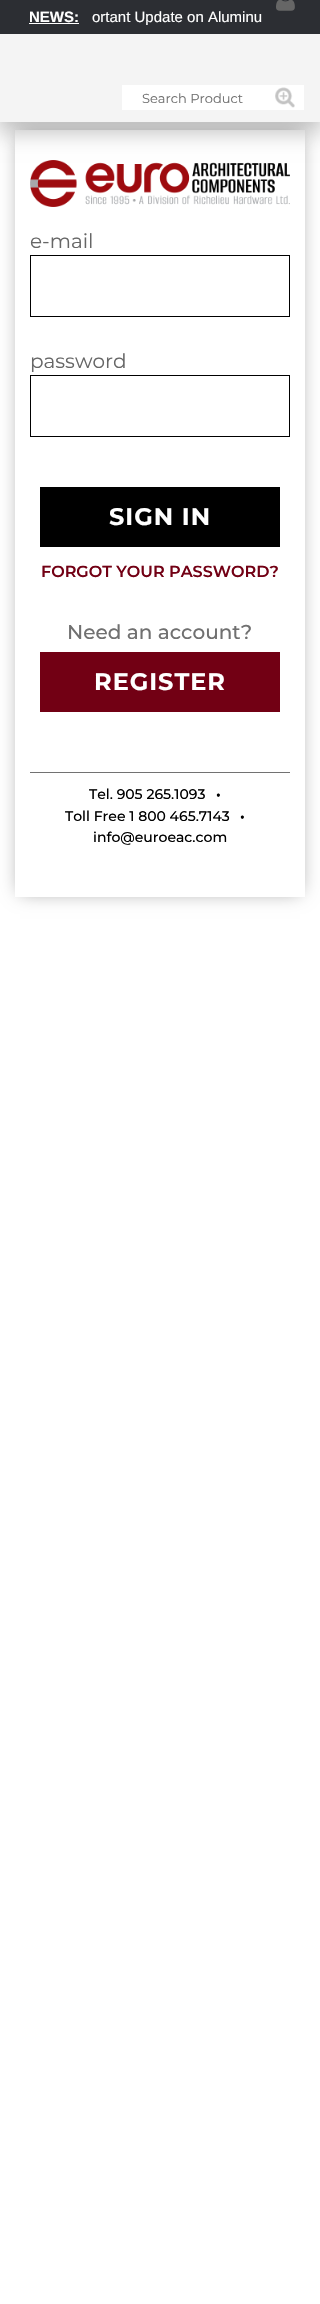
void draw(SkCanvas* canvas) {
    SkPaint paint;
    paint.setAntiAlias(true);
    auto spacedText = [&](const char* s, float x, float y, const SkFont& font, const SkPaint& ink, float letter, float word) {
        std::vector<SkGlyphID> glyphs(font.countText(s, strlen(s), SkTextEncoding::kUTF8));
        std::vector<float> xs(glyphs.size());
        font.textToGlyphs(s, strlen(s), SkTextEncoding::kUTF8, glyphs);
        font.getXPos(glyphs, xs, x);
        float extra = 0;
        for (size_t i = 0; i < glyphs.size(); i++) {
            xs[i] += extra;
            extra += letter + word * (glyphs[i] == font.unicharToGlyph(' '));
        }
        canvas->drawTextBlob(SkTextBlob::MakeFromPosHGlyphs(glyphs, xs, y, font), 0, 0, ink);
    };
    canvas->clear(0xFFFFFFFF);
    canvas->save();
    canvas->clipPath(SkPathBuilder(SkPathFillType::kEvenOdd).moveTo(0, 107).lineTo(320, 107).lineTo(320, 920).lineTo(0, 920).close().moveTo(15, 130).lineTo(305, 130).lineTo(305, 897).lineTo(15, 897).close().detach(), true);
    paint.setColor(0x66000000);
    paint.setMaskFilter(SkMaskFilter::MakeBlur(kNormal_SkBlurStyle, 9));
    canvas->drawRect(SkRect::MakeXYWH(20, 135, 280, 757), paint);
    paint.setMaskFilter(nullptr);
    canvas->restore();
    canvas->drawImageRect(SkImages::DeferredFromEncodedData(SkData::MakeFromFileName("img3.png")), SkRect::MakeXYWH(30, 160, 260, 47), SkSamplingOptions());
    paint.setColor(0x3D000000);
    paint.setMaskFilter(SkMaskFilter::MakeBlur(kNormal_SkBlurStyle, 10));
    canvas->drawRect(SkRect::MakeXYWH(-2, 7, 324, 126), paint);
    paint.setMaskFilter(nullptr);
    paint.setColor(0xFFF4F4F4);
    canvas->drawRect(SkRect::MakeXYWH(0, 34, 320, 88), paint);
    paint.setColor(0xFF2C2E33);
    canvas->drawRect(SkRect::MakeXYWH(0, 0, 320, 34), paint);
    SkFont font1(fontMgr->matchFamilyStyle("Liberation Sans", SkFontStyle::Bold()), 15);
    font1.setSubpixel(true);
    paint.setColor(0xFFFFFFFF);
    canvas->drawString("NEWS:", 29, 22, font1, paint);
    canvas->drawRect(SkRect::MakeXYWH(29, 23, 50, 1), paint);
    SkFont font2(fontMgr->matchFamilyStyle("Liberation Sans", SkFontStyle::Normal()), 15);
    font2.setSubpixel(true);
    canvas->drawString("ortant Update on Aluminu", 92, 22, font2, paint);
    canvas->drawImageRect(SkImages::DeferredFromEncodedData(SkData::MakeFromFileName("img1.png")), SkRect::MakeXYWH(276, 0, 19, 11), SkSamplingOptions());
    canvas->drawRect(SkRect::MakeXYWH(122, 85, 182, 25), paint);
    SkFont font3(fontMgr->matchFamilyStyle("Montserrat", SkFontStyle::Normal()), 13);
    font3.setSubpixel(true);
    paint.setColor(0xFF707070);
    canvas->drawString("Search Product", 142, 103, font3, paint);
    canvas->drawImageRect(SkImages::DeferredFromEncodedData(SkData::MakeFromFileName("img2.png")), SkRect::MakeXYWH(275, 87, 20, 21), SkSamplingOptions());
    SkFont font4(fontMgr->matchFamilyStyle("Montserrat", SkFontStyle::Normal()), 20);
    font4.setSubpixel(true);
    paint.setColor(0xFF666666);
    canvas->drawString("e-mail", 30, 248, font4, paint);
    paint.setStyle(SkPaint::kStroke_Style);
    paint.setStrokeWidth(1);
    paint.setColor(0xFF000000);
    canvas->drawRect(SkRect::MakeXYWH(30.5f, 255.5f, 259, 61), paint);
    paint.setStyle(SkPaint::kFill_Style);
    paint.setColor(0xFF666666);
    canvas->drawString("password", 30, 368, font4, paint);
    paint.setStyle(SkPaint::kStroke_Style);
    paint.setColor(0xFF000000);
    canvas->drawRect(SkRect::MakeXYWH(30.5f, 375.5f, 259, 61), paint);
    paint.setStyle(SkPaint::kFill_Style);
    canvas->drawRect(SkRect::MakeXYWH(40, 487, 240, 60), paint);
    SkFont font5(fontMgr->matchFamilyStyle("Montserrat", SkFontStyle::Bold()), 24);
    font5.setSubpixel(true);
    paint.setColor(0xFFFFFFFF);
    spacedText("SIGN IN", 109, 525, font5, paint, 1, 0);
    SkFont font6(fontMgr->matchFamilyStyle("Montserrat", SkFontStyle(600, SkFontStyle::kNormal_Width, SkFontStyle::kUpright_Slant)), 16);
    font6.setSubpixel(true);
    paint.setColor(0xFF720014);
    canvas->drawString("FORGOT YOUR PASSWORD?", 41, 577, font6, paint);
    SkFont font7(fontMgr->matchFamilyStyle("Montserrat", SkFontStyle(500, SkFontStyle::kNormal_Width, SkFontStyle::kUpright_Slant)), 20);
    font7.setSubpixel(true);
    paint.setColor(0xFF707070);
    canvas->drawString("Need an account?", 67, 639, font7, paint);
    paint.setColor(0xFF720014);
    canvas->drawRect(SkRect::MakeXYWH(40, 652, 240, 60), paint);
    paint.setColor(0xFFFFFFFF);
    spacedText("REGISTER", 94, 690, font5, paint, 1, 0);
    paint.setColor(0xFF727272);
    canvas->drawRect(SkRect::MakeXYWH(30, 772, 260, 1), paint);
    SkFont font8(fontMgr->matchFamilyStyle("Montserrat", SkFontStyle(500, SkFontStyle::kNormal_Width, SkFontStyle::kUpright_Slant)), 14);
    font8.setSubpixel(true);
    paint.setColor(0xFF000000);
    canvas->drawString("Tel. 905 265.1093", 89, 799, font8, paint);
    SkFont font9(fontMgr->matchFamilyStyle("Montserrat", SkFontStyle(600, SkFontStyle::kNormal_Width, SkFontStyle::kUpright_Slant)), 14);
    font9.setSubpixel(true);
    canvas->drawString("•", 216, 799, font9, paint);
    canvas->drawString("Toll Free 1 800 465.7143", 65, 821, font8, paint);
    canvas->drawString("•", 240, 821, font9, paint);
    canvas->drawString("info@euroeac.com", 93, 842, font8, paint);
}
